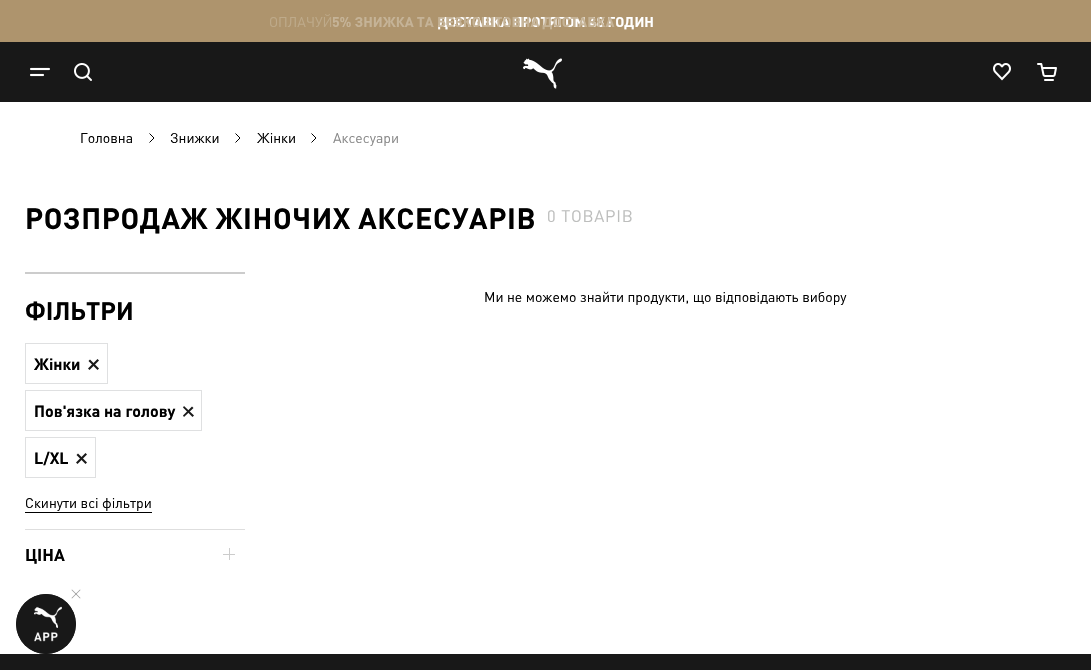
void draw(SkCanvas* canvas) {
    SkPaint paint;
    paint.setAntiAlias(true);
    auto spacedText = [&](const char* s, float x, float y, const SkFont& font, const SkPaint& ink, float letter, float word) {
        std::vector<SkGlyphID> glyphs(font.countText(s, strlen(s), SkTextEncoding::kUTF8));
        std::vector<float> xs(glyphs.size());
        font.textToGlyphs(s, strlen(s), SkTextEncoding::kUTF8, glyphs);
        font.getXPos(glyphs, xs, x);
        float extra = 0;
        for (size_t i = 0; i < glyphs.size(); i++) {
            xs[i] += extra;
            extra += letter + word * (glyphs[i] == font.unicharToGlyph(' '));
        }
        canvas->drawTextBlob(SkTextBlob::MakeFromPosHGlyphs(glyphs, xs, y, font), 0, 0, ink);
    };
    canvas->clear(0xFFFFFFFF);
    paint.setColor(0xFFAE946D);
    canvas->drawRect(SkRect::MakeXYWH(0, 0, 1091, 42), paint);
    SkFont font1(fontMgr->matchFamilyStyle("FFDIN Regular", SkFontStyle::Normal()), 14);
    font1.setSubpixel(true);
    paint.setColor(0xFFBEAA8A);
    canvas->drawString("ОПЛАЧУЙ", 269, 27, font1, paint);
    SkFont font2(fontMgr->matchFamilyStyle("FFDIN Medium", SkFontStyle::Bold()), 14);
    font2.setSubpixel(true);
    paint.setColor(0xFFFFFFFF);
    canvas->drawString("ДОСТАВКА ПРОТЯГОМ 48 ГОДИН", 438, 27, font2, paint);
    paint.setColor(0xFFC5B397);
    canvas->drawString("5% ЗНИЖКА ТА БЕЗКОШТОВНА ДОСТАВКА", 332, 27, font2, paint);
    paint.setColor(0xFF181818);
    canvas->drawRect(SkRect::MakeXYWH(0, 42, 1091, 60), paint);
    canvas->drawImageRect(SkImages::DeferredFromEncodedData(SkData::MakeFromFileName("img1.png")), SkRect::MakeXYWH(30, 67, 20, 10), SkSamplingOptions());
    canvas->drawImageRect(SkImages::DeferredFromEncodedData(SkData::MakeFromFileName("img2.png")), SkRect::MakeXYWH(74, 63, 18, 18), SkSamplingOptions());
    canvas->drawImageRect(SkImages::DeferredFromEncodedData(SkData::MakeFromFileName("img3.png")), SkRect::MakeXYWH(523, 58, 39, 31), SkSamplingOptions());
    canvas->drawImageRect(SkImages::DeferredFromEncodedData(SkData::MakeFromFileName("img4.png")), SkRect::MakeXYWH(993, 63, 18, 18), SkSamplingOptions());
    canvas->drawImageRect(SkImages::DeferredFromEncodedData(SkData::MakeFromFileName("img5.png")), SkRect::MakeXYWH(1037, 63, 20, 18), SkSamplingOptions());
    paint.setColor(0xFF000000);
    canvas->drawString("Головна", 80, 143, font1, paint);
    paint.setStyle(SkPaint::kStroke_Style);
    paint.setStrokeWidth(1);
    canvas->drawPath(SkPathBuilder().moveTo(149.5f, 142.5f).lineTo(154, 138).lineTo(149.5f, 133.5f).detach(), paint);
    paint.setStyle(SkPaint::kFill_Style);
    canvas->drawString("Знижки", 170, 143, font1, paint);
    paint.setStyle(SkPaint::kStroke_Style);
    canvas->drawPath(SkPathBuilder().moveTo(235.5f, 142.5f).lineTo(240, 138).lineTo(235.5f, 133.5f).detach(), paint);
    paint.setStyle(SkPaint::kFill_Style);
    canvas->drawString("Жінки", 257, 143, font1, paint);
    paint.setStyle(SkPaint::kStroke_Style);
    canvas->drawPath(SkPathBuilder().moveTo(311.5f, 142.5f).lineTo(316, 138).lineTo(311.5f, 133.5f).detach(), paint);
    paint.setStyle(SkPaint::kFill_Style);
    paint.setColor(0xFF888888);
    canvas->drawString("Аксесуари", 333, 143, font1, paint);
    SkFont font3(fontMgr->matchFamilyStyle("FFDIN Medium", SkFontStyle::Bold()), 29);
    font3.setSubpixel(true);
    paint.setColor(0xFF000000);
    spacedText("РОЗПРОДАЖ ЖІНОЧИХ АКСЕСУАРІВ", 25, 229, font3, paint, 0.6f, 0);
    SkFont font4(fontMgr->matchFamilyStyle("FFDIN Regular", SkFontStyle::Normal()), 16.5f);
    font4.setSubpixel(true);
    paint.setColor(0xFFBDBEBD);
    spacedText("0 ТОВАРІВ", 547, 222, font4, paint, 0.75f, 0);
    paint.setColor(0xFF000000);
    canvas->drawString("Ми не можемо знайти продукти, що відповідають вибору", 484, 302, font1, paint);
    paint.setColor(0xFFCCCCCC);
    canvas->drawRect(SkRect::MakeXYWH(25, 272, 220, 2), paint);
    SkFont font5(fontMgr->matchFamilyStyle("FFDIN Medium", SkFontStyle::Bold()), 25);
    font5.setSubpixel(true);
    paint.setColor(0xFF000000);
    canvas->drawString("ФІЛЬТРИ", 25, 320, font5, paint);
    paint.setStyle(SkPaint::kStroke_Style);
    paint.setColor(0xFFDFE0E1);
    canvas->drawRect(SkRect::MakeXYWH(25.5f, 343.5f, 82, 40), paint);
    SkFont font6(fontMgr->matchFamilyStyle("FFDIN Medium", SkFontStyle::Bold()), 16);
    font6.setSubpixel(true);
    paint.setStyle(SkPaint::kFill_Style);
    paint.setColor(0xFF000000);
    canvas->drawString("Жінки", 34, 370, font6, paint);
    paint.setColor(0xFF191919);
    canvas->drawPath(SkPathBuilder().moveTo(88, 368.5f).lineTo(97.5f, 359).lineTo(99, 360.5f).lineTo(89.5f, 370).close().detach(), paint);
    canvas->drawPath(SkPathBuilder().moveTo(88.5f, 361).lineTo(90, 359.5f).lineTo(99, 368.5f).lineTo(97.5f, 370).close().detach(), paint);
    paint.setStyle(SkPaint::kStroke_Style);
    paint.setColor(0xFFDFE0E1);
    canvas->drawRect(SkRect::MakeXYWH(25.5f, 390.5f, 176, 40), paint);
    paint.setStyle(SkPaint::kFill_Style);
    paint.setColor(0xFF000000);
    canvas->drawString("Пов'язка на голову", 34, 417, font6, paint);
    paint.setColor(0xFF191919);
    canvas->drawPath(SkPathBuilder().moveTo(183, 415.5f).lineTo(192, 406.5f).lineTo(193.5f, 408).lineTo(184, 417).close().detach(), paint);
    canvas->drawPath(SkPathBuilder().moveTo(184, 406).lineTo(194, 415.5f).lineTo(192.5f, 417).lineTo(183, 407.5f).close().detach(), paint);
    paint.setStyle(SkPaint::kStroke_Style);
    paint.setColor(0xFFDFE0E1);
    canvas->drawRect(SkRect::MakeXYWH(25.5f, 437.5f, 70, 40), paint);
    paint.setStyle(SkPaint::kFill_Style);
    paint.setColor(0xFF000000);
    canvas->drawString("L/XL", 34, 464, font6, paint);
    paint.setColor(0xFF191919);
    canvas->drawPath(SkPathBuilder().moveTo(76, 462.5f).lineTo(85.5f, 453).lineTo(87, 454.5f).lineTo(77.5f, 464).close().detach(), paint);
    canvas->drawPath(SkPathBuilder().moveTo(76.5f, 455).lineTo(78, 453.5f).lineTo(87, 462.5f).lineTo(85.5f, 464).close().detach(), paint);
    paint.setColor(0xFF000000);
    canvas->drawRect(SkRect::MakeXYWH(25, 512, 127, 1), paint);
    canvas->drawString("Скинути всі фільтри", 25, 508, font1, paint);
    paint.setColor(0xFFDEDEDE);
    canvas->drawRect(SkRect::MakeXYWH(25, 529, 220, 1), paint);
    SkFont font7(fontMgr->matchFamilyStyle("FFDIN Medium", SkFontStyle::Bold()), 17);
    font7.setSubpixel(true);
    paint.setColor(0xFF000000);
    canvas->drawString("ЦІНА", 25, 561, font7, paint);
    paint.setColor(0xFFCCCCCC);
    canvas->drawRect(SkRect::MakeXYWH(223, 554, 12, 1), paint);
    canvas->drawRect(SkRect::MakeXYWH(229, 548, 1, 12), paint);
    paint.setColor(0xFF181818);
    canvas->drawCircle(46, 624, 30, paint);
    canvas->drawImageRect(SkImages::DeferredFromEncodedData(SkData::MakeFromFileName("img6.png")), SkRect::MakeXYWH(16, 594, 60, 60), SkSamplingOptions());
    paint.setColor(0xFF999999);
    canvas->drawPath(SkPathBuilder().moveTo(71.5f, 598).lineTo(80, 589.5f).lineTo(80.5f, 590).lineTo(72, 598.5f).close().detach(), paint);
    paint.setColor(0x66000000);
    canvas->drawPath(SkPathBuilder().moveTo(72, 589.5f).lineTo(80.5f, 598).lineTo(80, 598.5f).lineTo(71.5f, 590).close().detach(), paint);
    paint.setColor(0xFF181818);
    canvas->drawRect(SkRect::MakeXYWH(0, 654, 1091, 16), paint);
}
